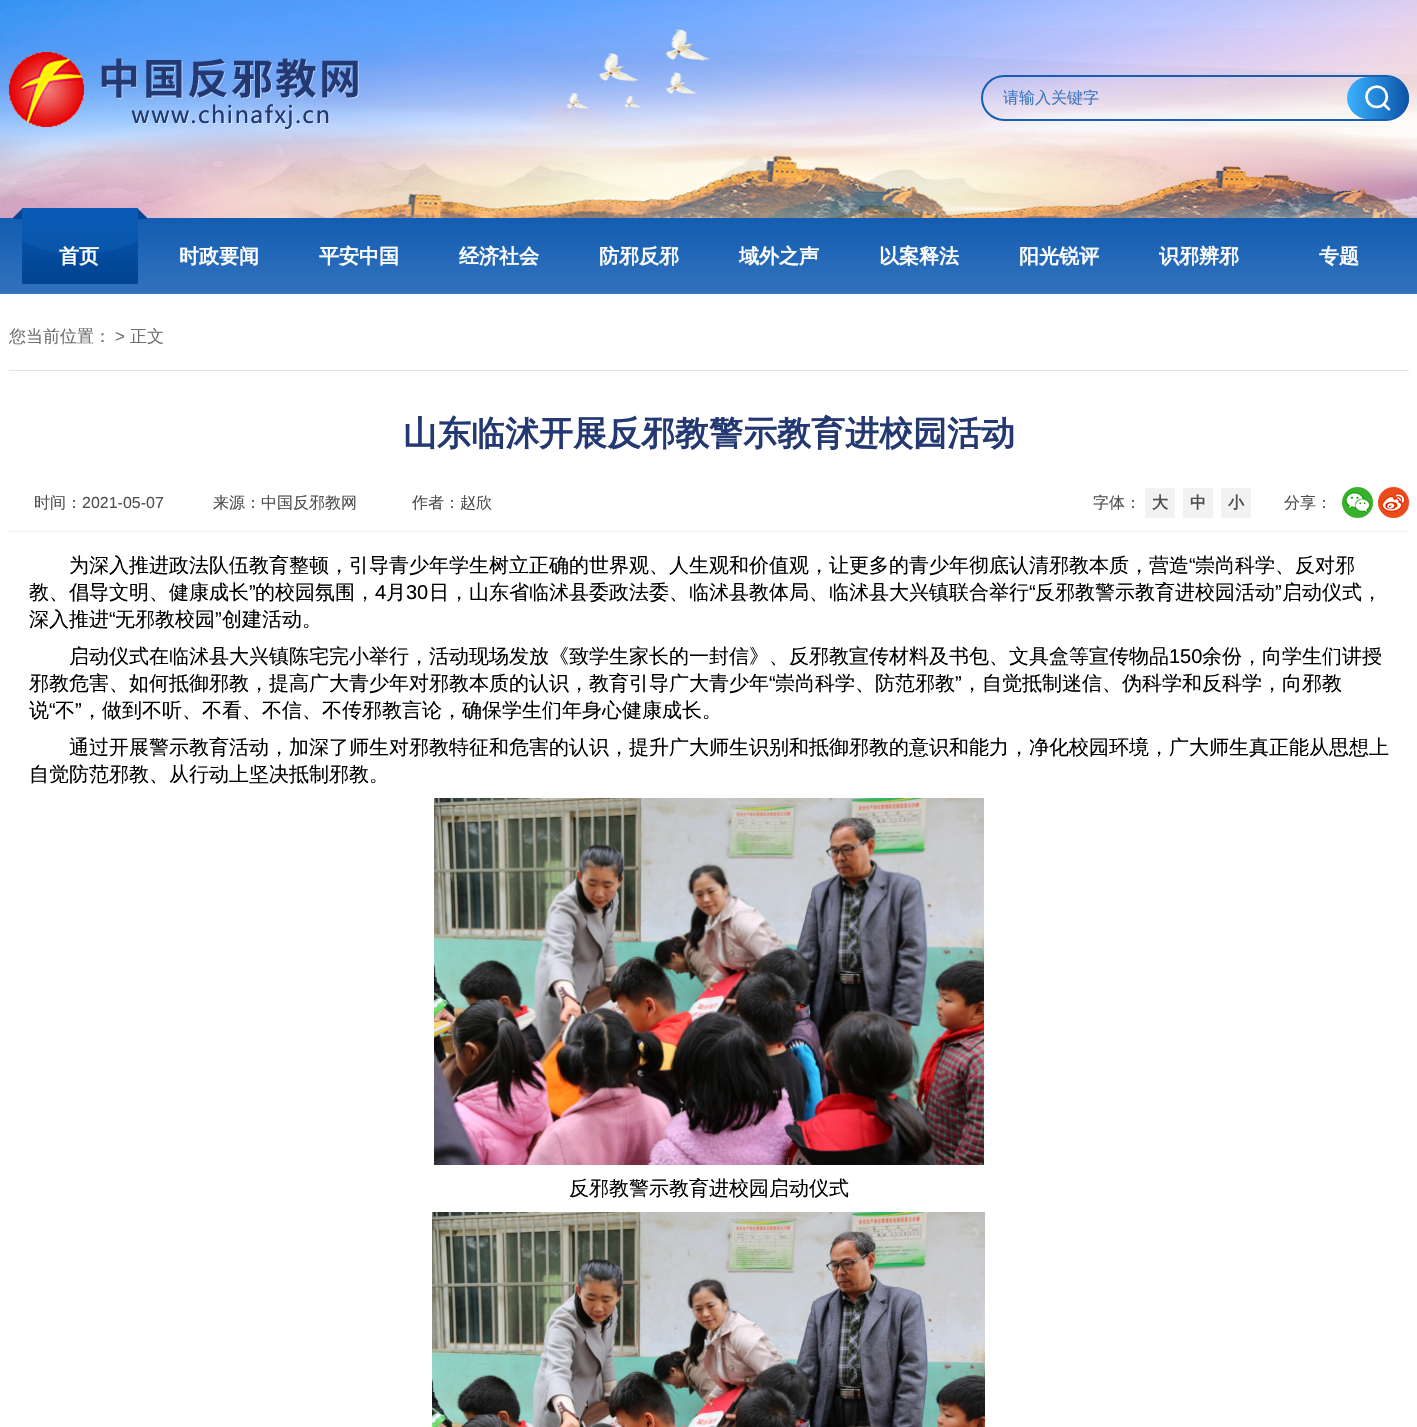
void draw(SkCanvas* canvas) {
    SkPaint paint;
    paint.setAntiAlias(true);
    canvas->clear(0xFFFFFFFF);
    canvas->drawImageRect(SkImages::DeferredFromEncodedData(SkData::MakeFromFileName("img1.png")), SkRect::MakeXYWH(0, 0, 1417, 218), SkSamplingOptions());
    canvas->drawImageRect(SkImages::DeferredFromEncodedData(SkData::MakeFromFileName("img2.png")), SkRect::MakeXYWH(9, 52, 350, 78), SkSamplingOptions());
    paint.setStyle(SkPaint::kStroke_Style);
    paint.setStrokeWidth(2);
    paint.setColor(0xFF145EB3);
    canvas->drawRoundRect(SkRect::MakeXYWH(982, 76, 426, 44), 22, 22, paint);
    SkFont font1(fontMgr->matchFamilyStyle("WenQuanYi Zen Hei", SkFontStyle(500, SkFontStyle::kNormal_Width, SkFontStyle::kUpright_Slant)), 16);
    font1.setSubpixel(true);
    paint.setStyle(SkPaint::kFill_Style);
    paint.setColor(0xFF3C76BF);
    canvas->drawString("请输入关键字", 1003, 103, font1, paint);
    canvas->drawImageRect(SkImages::DeferredFromEncodedData(SkData::MakeFromFileName("img3.png")), SkRect::MakeXYWH(1347, 77, 62, 42), SkSamplingOptions());
    {
        const SkColor colors[] = {0xFF135DB2, 0xFF3272BC};
        const float stops[] = {0, 1};
        const SkPoint ends[] = {{709, 218}, {709, 294}};
        paint.setShader(SkGradientShader::MakeLinear(ends, colors, stops, 2, SkTileMode::kClamp));
        paint.setAlpha(255);
    }
    canvas->drawRect(SkRect::MakeXYWH(0, 218, 1417, 76), paint);
    canvas->drawImageRect(SkImages::DeferredFromEncodedData(SkData::MakeFromFileName("img4.png")), SkRect::MakeXYWH(13, 208, 134, 76), SkSamplingOptions());
    SkFont font2(fontMgr->matchFamilyStyle("WenQuanYi Zen Hei", SkFontStyle::Bold()), 20);
    font2.setSubpixel(true);
    paint.setShader(nullptr);
    paint.setColor(0xFFFFFFFF);
    canvas->drawString("首页", 59, 263, font2, paint);
    canvas->drawString("时政要闻", 179, 263, font2, paint);
    canvas->drawString("平安中国", 319, 263, font2, paint);
    canvas->drawString("经济社会", 459, 263, font2, paint);
    canvas->drawString("防邪反邪", 599, 263, font2, paint);
    canvas->drawString("域外之声", 739, 263, font2, paint);
    canvas->drawString("以案释法", 879, 263, font2, paint);
    canvas->drawString("阳光锐评", 1019, 263, font2, paint);
    canvas->drawString("识邪辨邪", 1159, 263, font2, paint);
    canvas->drawString("专题", 1319, 263, font2, paint);
    paint.setColor(0xFFE3E3E3);
    canvas->drawRect(SkRect::MakeXYWH(9, 370, 1400, 1), paint);
    SkFont font3(fontMgr->matchFamilyStyle("WenQuanYi Zen Hei", SkFontStyle(500, SkFontStyle::kNormal_Width, SkFontStyle::kUpright_Slant)), 17);
    font3.setSubpixel(true);
    paint.setColor(0xFF6F6F6F);
    canvas->drawString("您当前位置：", 9, 342, font3, paint);
    SkFont font4(fontMgr->matchFamilyStyle("Liberation Sans", SkFontStyle::Normal()), 17);
    font4.setSubpixel(true);
    canvas->drawString(">", 115, 342, font4, paint);
    canvas->drawString("正文", 130, 342, font3, paint);
    SkFont font5(fontMgr->matchFamilyStyle("WenQuanYi Zen Hei", SkFontStyle::Bold()), 34);
    font5.setSubpixel(true);
    paint.setColor(0xFF243972);
    canvas->drawString("山东临沭开展反邪教警示教育进校园活动", 403, 445, font5, paint);
    paint.setColor(0xFFEEEEEE);
    canvas->drawRect(SkRect::MakeXYWH(9, 531, 1400, 1), paint);
    paint.setColor(0xFF4E4E4E);
    canvas->drawString("时间：", 34, 508, font1, paint);
    SkFont font6(fontMgr->matchFamilyStyle("Liberation Sans", SkFontStyle::Normal()), 16);
    font6.setSubpixel(true);
    canvas->drawString("2021-05-07", 82, 508, font6, paint);
    canvas->drawString("来源：中国反邪教网", 213, 508, font1, paint);
    canvas->drawString("作者：赵欣", 412, 508, font1, paint);
    canvas->drawString("字体：", 1093, 508, font1, paint);
    paint.setColor(0xFFF2F2F2);
    canvas->drawRect(SkRect::MakeXYWH(1145, 488, 30, 30), paint);
    SkFont font7(fontMgr->matchFamilyStyle("WenQuanYi Zen Hei", SkFontStyle::Bold()), 16);
    font7.setSubpixel(true);
    paint.setColor(0xFF4E4E4E);
    canvas->drawString("大", 1152, 508, font7, paint);
    paint.setColor(0xFFF2F2F2);
    canvas->drawRect(SkRect::MakeXYWH(1183, 488, 30, 30), paint);
    paint.setColor(0xFF4E4E4E);
    canvas->drawString("中", 1190, 508, font7, paint);
    paint.setColor(0xFFF2F2F2);
    canvas->drawRect(SkRect::MakeXYWH(1221, 488, 30, 30), paint);
    paint.setColor(0xFF4E4E4E);
    canvas->drawString("小", 1228, 508, font7, paint);
    canvas->drawString("分享：", 1284, 508, font1, paint);
    canvas->drawImageRect(SkImages::DeferredFromEncodedData(SkData::MakeFromFileName("img5.png")), SkRect::MakeXYWH(1342, 487, 31, 31), SkSamplingOptions());
    canvas->drawImageRect(SkImages::DeferredFromEncodedData(SkData::MakeFromFileName("img6.png")), SkRect::MakeXYWH(1378, 487, 31, 31), SkSamplingOptions());
    SkFont font8(fontMgr->matchFamilyStyle("WenQuanYi Zen Hei", SkFontStyle(500, SkFontStyle::kNormal_Width, SkFontStyle::kUpright_Slant)), 20);
    font8.setSubpixel(true);
    paint.setColor(0xFF000000);
    canvas->drawString("为深入推进政法队伍教育整顿，引导青少年学生树立正确的世界观、人生观和价值观，让更多的青少年彻底认清邪教本质，营造", 69, 572, font8, paint);
    SkFont font9(fontMgr->matchFamilyStyle("Liberation Sans", SkFontStyle::Normal()), 20);
    font9.setSubpixel(true);
    canvas->drawString("“", 1189, 572, font9, paint);
    canvas->drawString("崇尚科学、反对邪", 1195, 572, font8, paint);
    canvas->drawString("教、倡导文明、健康成长", 29, 599, font8, paint);
    canvas->drawString("”", 249, 599, font9, paint);
    canvas->drawString("的校园氛围，", 255, 599, font8, paint);
    canvas->drawString("4", 375, 599, font9, paint);
    canvas->drawString("月", 386, 599, font8, paint);
    canvas->drawString("30", 406, 599, font9, paint);
    canvas->drawString("日，山东省临沭县委政法委、临沭县教体局、临沭县大兴镇联合举行", 429, 599, font8, paint);
    canvas->drawString("“", 1029, 599, font9, paint);
    canvas->drawString("反邪教警示教育进校园活动", 1035, 599, font8, paint);
    canvas->drawString("”", 1275, 599, font9, paint);
    canvas->drawString("启动仪式，", 1282, 599, font8, paint);
    canvas->drawString("深入推进", 29, 626, font8, paint);
    canvas->drawString("“", 109, 626, font9, paint);
    canvas->drawString("无邪教校园", 115, 626, font8, paint);
    canvas->drawString("”", 215, 626, font9, paint);
    canvas->drawString("创建活动。", 222, 626, font8, paint);
    canvas->drawString("启动仪式在临沭县大兴镇陈宅完小举行，活动现场发放《致学生家长的一封信》、反邪教宣传材料及书包、文具盒等宣传物品", 69, 663, font8, paint);
    canvas->drawString("150", 1169, 663, font9, paint);
    canvas->drawString("余份，向学生们讲授", 1202, 663, font8, paint);
    canvas->drawString("邪教危害、如何抵御邪教，提高广大青少年对邪教本质的认识，教育引导广大青少年", 29, 690, font8, paint);
    canvas->drawString("“", 769, 690, font9, paint);
    canvas->drawString("崇尚科学、防范邪教", 775, 690, font8, paint);
    canvas->drawString("”", 955, 690, font9, paint);
    canvas->drawString("，自觉抵制迷信、伪科学和反科学，向邪教", 962, 690, font8, paint);
    canvas->drawString("说", 29, 717, font8, paint);
    canvas->drawString("“", 49, 717, font9, paint);
    canvas->drawString("不", 55, 717, font8, paint);
    canvas->drawString("”", 75, 717, font9, paint);
    canvas->drawString("，做到不听、不看、不信、不传邪教言论，确保学生们年身心健康成长。", 82, 717, font8, paint);
    canvas->drawString("通过开展警示教育活动，加深了师生对邪教特征和危害的认识，提升广大师生识别和抵御邪教的意识和能力，净化校园环境，广大师生真正能从思想上", 69, 754, font8, paint);
    canvas->drawString("自觉防范邪教、从行动上坚决抵制邪教。", 29, 781, font8, paint);
    canvas->drawImageRect(SkImages::DeferredFromEncodedData(SkData::MakeFromFileName("img7.png")), SkRect::MakeXYWH(434, 798, 550, 367), SkSamplingOptions());
    canvas->drawString("反邪教警示教育进校园启动仪式", 569, 1195, font8, paint);
    canvas->drawImageRect(SkImages::DeferredFromEncodedData(SkData::MakeFromFileName("img8.png")), SkRect::MakeXYWH(432, 1212, 553, 215), SkSamplingOptions());
}
